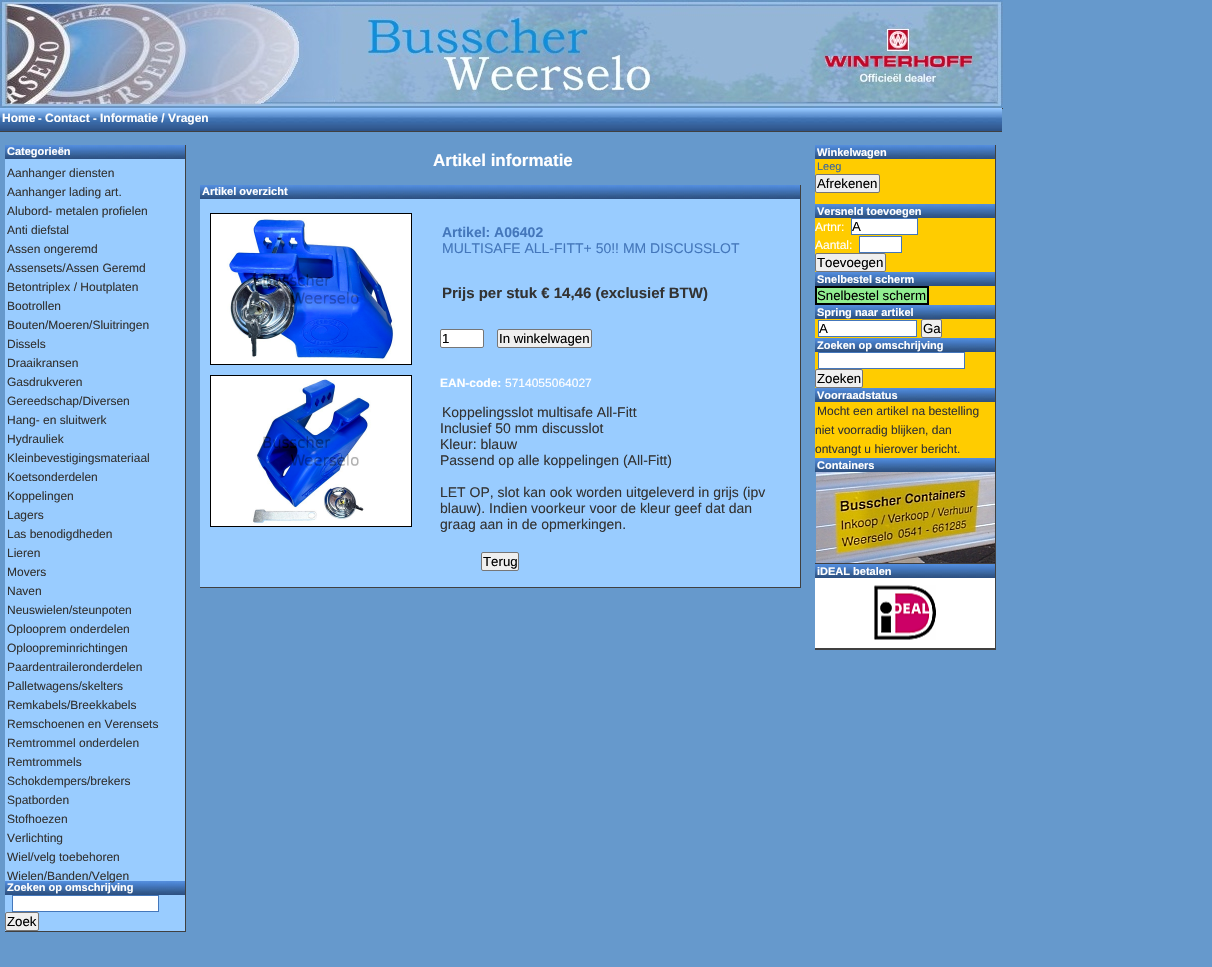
void draw(SkCanvas* canvas) {
    SkPaint paint;
    paint.setAntiAlias(true);
    canvas->clear(0xFF6699CC);
    canvas->drawImageRect(SkImages::DeferredFromEncodedData(SkData::MakeFromFileName("img1.png")), SkRect::MakeXYWH(0, 0, 1003, 108), SkSamplingOptions());
    paint.setColor(0xFF404040);
    canvas->drawRect(SkRect::MakeXYWH(1002, 108, 1, 1), paint);
    canvas->drawImageRect(SkImages::DeferredFromEncodedData(SkData::MakeFromFileName("img2.png")), SkRect::MakeXYWH(0, 108, 1002, 23), SkSamplingOptions());
    canvas->drawRect(SkRect::MakeXYWH(0, 131, 1002, 1), paint);
    SkFont font1(fontMgr->matchFamilyStyle("Liberation Sans", SkFontStyle::Bold()), 12);
    font1.setSubpixel(true);
    paint.setColor(0xFFFFFFFF);
    canvas->drawString("Home", 2, 122, font1, paint);
    SkFont font2(fontMgr->matchFamilyStyle("Liberation Sans", SkFontStyle::Bold()), 11);
    font2.setSubpixel(true);
    canvas->drawString("-", 38, 122, font2, paint);
    canvas->drawString("Contact", 45, 122, font1, paint);
    canvas->drawString("-", 93, 122, font2, paint);
    canvas->drawString("Informatie / Vragen", 100, 122, font1, paint);
    paint.setColor(0xFF99CCFF);
    canvas->drawRect(SkRect::MakeXYWH(5, 159, 180, 772), paint);
    paint.setColor(0xFF404040);
    canvas->drawRect(SkRect::MakeXYWH(185, 145, 1, 787), paint);
    canvas->drawRect(SkRect::MakeXYWH(5, 931, 181, 1), paint);
    canvas->drawImageRect(SkImages::DeferredFromEncodedData(SkData::MakeFromFileName("img3.png")), SkRect::MakeXYWH(5, 145, 180, 14), SkSamplingOptions());
    paint.setColor(0xFFFFFFFF);
    canvas->drawString("Categorieën", 7, 155, font2, paint);
    SkFont font3(fontMgr->matchFamilyStyle("Liberation Sans", SkFontStyle::Normal()), 12);
    font3.setSubpixel(true);
    paint.setColor(0xFF333333);
    canvas->drawString("Aanhanger diensten", 7, 177, font3, paint);
    canvas->drawString("Aanhanger lading art.", 7, 196, font3, paint);
    canvas->drawString("Alubord- metalen profielen", 7, 215, font3, paint);
    canvas->drawString("Anti diefstal", 7, 234, font3, paint);
    canvas->drawString("Assen ongeremd", 7, 253, font3, paint);
    canvas->drawString("Assensets/Assen Geremd", 7, 272, font3, paint);
    canvas->drawString("Betontriplex / Houtplaten", 7, 291, font3, paint);
    canvas->drawString("Bootrollen", 7, 310, font3, paint);
    canvas->drawString("Bouten/Moeren/Sluitringen", 7, 329, font3, paint);
    canvas->drawString("Dissels", 7, 348, font3, paint);
    canvas->drawString("Draaikransen", 7, 367, font3, paint);
    canvas->drawString("Gasdrukveren", 7, 386, font3, paint);
    canvas->drawString("Gereedschap/Diversen", 7, 405, font3, paint);
    canvas->drawString("Hang- en sluitwerk", 7, 424, font3, paint);
    canvas->drawString("Hydrauliek", 7, 443, font3, paint);
    canvas->drawString("Kleinbevestigingsmateriaal", 7, 462, font3, paint);
    canvas->drawString("Koetsonderdelen", 7, 481, font3, paint);
    canvas->drawString("Koppelingen", 7, 500, font3, paint);
    canvas->drawString("Lagers", 7, 519, font3, paint);
    canvas->drawString("Las benodigdheden", 7, 538, font3, paint);
    canvas->drawString("Lieren", 7, 557, font3, paint);
    canvas->drawString("Movers", 7, 576, font3, paint);
    canvas->drawString("Naven", 7, 595, font3, paint);
    canvas->drawString("Neuswielen/steunpoten", 7, 614, font3, paint);
    canvas->drawString("Oplooprem onderdelen", 7, 633, font3, paint);
    canvas->drawString("Oploopreminrichtingen", 7, 652, font3, paint);
    canvas->drawString("Paardentraileronderdelen", 7, 671, font3, paint);
    canvas->drawString("Palletwagens/skelters", 7, 690, font3, paint);
    canvas->drawString("Remkabels/Breekkabels", 7, 709, font3, paint);
    canvas->drawString("Remschoenen en Verensets", 7, 728, font3, paint);
    canvas->drawString("Remtrommel onderdelen", 7, 747, font3, paint);
    canvas->drawString("Remtrommels", 7, 766, font3, paint);
    canvas->drawString("Schokdempers/brekers", 7, 785, font3, paint);
    canvas->drawString("Spatborden", 7, 804, font3, paint);
    canvas->drawString("Stofhoezen", 7, 823, font3, paint);
    canvas->drawString("Verlichting", 7, 842, font3, paint);
    canvas->drawString("Wiel/velg toebehoren", 7, 861, font3, paint);
    canvas->drawImageRect(SkImages::DeferredFromEncodedData(SkData::MakeFromFileName("img3.png")), SkRect::MakeXYWH(5, 881, 180, 14), SkSamplingOptions());
    canvas->drawString("Wielen/Banden/Velgen", 7, 880, font3, paint);
    paint.setColor(0xFFFFFFFF);
    canvas->drawString("Zoeken op omschrijving", 7, 891, font2, paint);
    canvas->drawRect(SkRect::MakeXYWH(12.5f, 895.5f, 146, 16), paint);
    paint.setStyle(SkPaint::kStroke_Style);
    paint.setStrokeWidth(1);
    paint.setColor(0xFF4477BB);
    canvas->drawRect(SkRect::MakeXYWH(12.5f, 895.5f, 146, 16), paint);
    paint.setStyle(SkPaint::kFill_Style);
    paint.setColor(0xFFEFEFEF);
    canvas->drawRoundRect(SkRect::MakeXYWH(5.5f, 912.5f, 33, 18), 1.5f, 1.5f, paint);
    paint.setStyle(SkPaint::kStroke_Style);
    paint.setColor(0xFF767676);
    canvas->drawRoundRect(SkRect::MakeXYWH(5.5f, 912.5f, 33, 18), 1.5f, 1.5f, paint);
    SkFont font4(fontMgr->matchFamilyStyle("Liberation Sans", SkFontStyle::Normal()), 13.25f);
    font4.setSubpixel(true);
    paint.setStyle(SkPaint::kFill_Style);
    paint.setColor(0xFF000000);
    canvas->drawString("Zoek", 7, 926, font4, paint);
    paint.setColor(0xFFFFCC00);
    canvas->drawRect(SkRect::MakeXYWH(815, 159, 180, 299), paint);
    paint.setColor(0xFF404040);
    canvas->drawRect(SkRect::MakeXYWH(995, 145, 1, 504), paint);
    canvas->drawRect(SkRect::MakeXYWH(815, 648, 181, 2), paint);
    canvas->drawImageRect(SkImages::DeferredFromEncodedData(SkData::MakeFromFileName("img3.png")), SkRect::MakeXYWH(815, 145, 180, 14), SkSamplingOptions());
    paint.setColor(0xFFFFFFFF);
    canvas->drawString("Winkelwagen", 817, 156, font2, paint);
    SkFont font5(fontMgr->matchFamilyStyle("Liberation Sans", SkFontStyle::Normal()), 11);
    font5.setSubpixel(true);
    paint.setColor(0xFF39649D);
    canvas->drawString("Leeg", 817, 170, font5, paint);
    paint.setColor(0xFFEFEFEF);
    canvas->drawRoundRect(SkRect::MakeXYWH(815.5f, 174.5f, 64, 18), 1.5f, 1.5f, paint);
    paint.setStyle(SkPaint::kStroke_Style);
    paint.setColor(0xFF767676);
    canvas->drawRoundRect(SkRect::MakeXYWH(815.5f, 174.5f, 64, 18), 1.5f, 1.5f, paint);
    paint.setStyle(SkPaint::kFill_Style);
    paint.setColor(0xFF000000);
    canvas->drawString("Afrekenen", 817, 188, font4, paint);
    canvas->drawImageRect(SkImages::DeferredFromEncodedData(SkData::MakeFromFileName("img3.png")), SkRect::MakeXYWH(815, 204, 180, 14), SkSamplingOptions());
    paint.setColor(0xFFFFFFFF);
    canvas->drawString("Versneld toevoegen", 817, 215, font2, paint);
    canvas->drawString("Artnr:", 815, 231, font3, paint);
    canvas->drawRect(SkRect::MakeXYWH(851.5f, 218.5f, 66, 16), paint);
    paint.setStyle(SkPaint::kStroke_Style);
    paint.setColor(0xFF4477BB);
    canvas->drawRect(SkRect::MakeXYWH(851.5f, 218.5f, 66, 16), paint);
    paint.setStyle(SkPaint::kFill_Style);
    paint.setColor(0xFF000000);
    canvas->drawString("A", 852, 231, font4, paint);
    paint.setColor(0xFFFFFFFF);
    canvas->drawString("Aantal:", 815, 249, font3, paint);
    canvas->drawRect(SkRect::MakeXYWH(859.5f, 236.5f, 42, 16), paint);
    paint.setStyle(SkPaint::kStroke_Style);
    paint.setColor(0xFF4477BB);
    canvas->drawRect(SkRect::MakeXYWH(859.5f, 236.5f, 42, 16), paint);
    paint.setStyle(SkPaint::kFill_Style);
    paint.setColor(0xFFEFEFEF);
    canvas->drawRoundRect(SkRect::MakeXYWH(815.5f, 253.5f, 70, 18), 1.5f, 1.5f, paint);
    paint.setStyle(SkPaint::kStroke_Style);
    paint.setColor(0xFF767676);
    canvas->drawRoundRect(SkRect::MakeXYWH(815.5f, 253.5f, 70, 18), 1.5f, 1.5f, paint);
    paint.setStyle(SkPaint::kFill_Style);
    paint.setColor(0xFF000000);
    canvas->drawString("Toevoegen", 817, 267, font4, paint);
    canvas->drawImageRect(SkImages::DeferredFromEncodedData(SkData::MakeFromFileName("img3.png")), SkRect::MakeXYWH(815, 272, 180, 14), SkSamplingOptions());
    paint.setColor(0xFFFFFFFF);
    canvas->drawString("Snelbestel scherm", 817, 283, font2, paint);
    paint.setColor(0xFF90EE90);
    canvas->drawRect(SkRect::MakeXYWH(816, 287, 112, 17), paint);
    paint.setStyle(SkPaint::kStroke_Style);
    paint.setStrokeWidth(2);
    paint.setColor(0xFF000000);
    canvas->drawRect(SkRect::MakeXYWH(816, 287, 112, 17), paint);
    paint.setStyle(SkPaint::kFill_Style);
    canvas->drawString("Snelbestel scherm", 817, 300, font4, paint);
    canvas->drawImageRect(SkImages::DeferredFromEncodedData(SkData::MakeFromFileName("img3.png")), SkRect::MakeXYWH(815, 305, 180, 14), SkSamplingOptions());
    paint.setColor(0xFFFFFFFF);
    canvas->drawString("Spring naar artikel", 817, 316, font2, paint);
    canvas->drawRect(SkRect::MakeXYWH(818.5f, 320.5f, 98, 16), paint);
    paint.setStyle(SkPaint::kStroke_Style);
    paint.setStrokeWidth(1);
    paint.setColor(0xFF4477BB);
    canvas->drawRect(SkRect::MakeXYWH(818.5f, 320.5f, 98, 16), paint);
    paint.setStyle(SkPaint::kFill_Style);
    paint.setColor(0xFF000000);
    canvas->drawString("A", 819, 333, font4, paint);
    paint.setColor(0xFFEFEFEF);
    canvas->drawRoundRect(SkRect::MakeXYWH(921.5f, 319.5f, 20, 18), 1.5f, 1.5f, paint);
    paint.setStyle(SkPaint::kStroke_Style);
    paint.setColor(0xFF767676);
    canvas->drawRoundRect(SkRect::MakeXYWH(921.5f, 319.5f, 20, 18), 1.5f, 1.5f, paint);
    paint.setStyle(SkPaint::kFill_Style);
    paint.setColor(0xFF000000);
    canvas->drawString("Ga", 923, 333, font4, paint);
    canvas->drawImageRect(SkImages::DeferredFromEncodedData(SkData::MakeFromFileName("img3.png")), SkRect::MakeXYWH(815, 338, 180, 14), SkSamplingOptions());
    paint.setColor(0xFFFFFFFF);
    canvas->drawString("Zoeken op omschrijving", 817, 349, font2, paint);
    canvas->drawRect(SkRect::MakeXYWH(818.5f, 352.5f, 146, 16), paint);
    paint.setStyle(SkPaint::kStroke_Style);
    paint.setColor(0xFF4477BB);
    canvas->drawRect(SkRect::MakeXYWH(818.5f, 352.5f, 146, 16), paint);
    paint.setStyle(SkPaint::kFill_Style);
    paint.setColor(0xFFEFEFEF);
    canvas->drawRoundRect(SkRect::MakeXYWH(815.5f, 369.5f, 47, 18), 1.5f, 1.5f, paint);
    paint.setStyle(SkPaint::kStroke_Style);
    paint.setColor(0xFF767676);
    canvas->drawRoundRect(SkRect::MakeXYWH(815.5f, 369.5f, 47, 18), 1.5f, 1.5f, paint);
    paint.setStyle(SkPaint::kFill_Style);
    paint.setColor(0xFF000000);
    canvas->drawString("Zoeken", 817, 383, font4, paint);
    canvas->drawImageRect(SkImages::DeferredFromEncodedData(SkData::MakeFromFileName("img3.png")), SkRect::MakeXYWH(815, 388, 180, 14), SkSamplingOptions());
    paint.setColor(0xFFFFFFFF);
    canvas->drawString("Voorraadstatus", 817, 399, font2, paint);
    paint.setColor(0xFF333333);
    canvas->drawString("Mocht een artikel na bestelling", 817, 415, font3, paint);
    canvas->drawString("niet voorradig blijken, dan", 815, 434, font3, paint);
    canvas->drawString("ontvangt u hierover bericht.", 815, 453, font3, paint);
    canvas->drawImageRect(SkImages::DeferredFromEncodedData(SkData::MakeFromFileName("img3.png")), SkRect::MakeXYWH(815, 458, 180, 14), SkSamplingOptions());
    paint.setColor(0xFFFFFFFF);
    canvas->drawString("Containers", 817, 469, font2, paint);
    canvas->drawImageRect(SkImages::DeferredFromEncodedData(SkData::MakeFromFileName("img4.png")), SkRect::MakeXYWH(816, 472, 179, 91), SkSamplingOptions());
    paint.setColor(0xFF404040);
    canvas->drawRect(SkRect::MakeXYWH(815, 563, 181, 1), paint);
    canvas->drawImageRect(SkImages::DeferredFromEncodedData(SkData::MakeFromFileName("img3.png")), SkRect::MakeXYWH(815, 564, 180, 14), SkSamplingOptions());
    paint.setColor(0xFFFFFFFF);
    canvas->drawString("iDEAL betalen", 817, 575, font2, paint);
    canvas->drawRect(SkRect::MakeXYWH(815, 578, 180, 70), paint);
    canvas->drawImageRect(SkImages::DeferredFromEncodedData(SkData::MakeFromFileName("img5.png")), SkRect::MakeXYWH(874, 585, 62, 55), SkSamplingOptions());
    SkFont font6(fontMgr->matchFamilyStyle("Liberation Sans", SkFontStyle::Bold()), 17);
    font6.setSubpixel(true);
    canvas->drawString("Artikel informatie", 433, 166, font6, paint);
    paint.setColor(0xFF99CCFF);
    canvas->drawRect(SkRect::MakeXYWH(200, 199, 600, 388), paint);
    paint.setColor(0xFF404040);
    canvas->drawRect(SkRect::MakeXYWH(800, 185, 1, 403), paint);
    canvas->drawRect(SkRect::MakeXYWH(200, 587, 601, 1), paint);
    canvas->drawImageRect(SkImages::DeferredFromEncodedData(SkData::MakeFromFileName("img6.png")), SkRect::MakeXYWH(200, 185, 600, 14), SkSamplingOptions());
    paint.setColor(0xFFFFFFFF);
    canvas->drawString("Artikel overzicht", 202, 195, font2, paint);
    paint.setStyle(SkPaint::kStroke_Style);
    paint.setColor(0xFF000000);
    canvas->drawRect(SkRect::MakeXYWH(210.5f, 213.5f, 201, 151), paint);
    canvas->drawImageRect(SkImages::DeferredFromEncodedData(SkData::MakeFromFileName("img7.png")), SkRect::MakeXYWH(211, 214, 200, 150), SkSamplingOptions());
    SkFont font7(fontMgr->matchFamilyStyle("Liberation Sans", SkFontStyle::Bold()), 14);
    font7.setSubpixel(true);
    paint.setStyle(SkPaint::kFill_Style);
    paint.setColor(0xFF4477BB);
    canvas->drawString("Artikel: A06402", 442, 237, font7, paint);
    SkFont font8(fontMgr->matchFamilyStyle("Liberation Sans", SkFontStyle::Normal()), 14);
    font8.setSubpixel(true);
    canvas->drawString("MULTISAFE ALL-FITT+ 50!! MM DISCUSSLOT", 442, 253, font8, paint);
    SkFont font9(fontMgr->matchFamilyStyle("Liberation Sans", SkFontStyle::Bold()), 15);
    font9.setSubpixel(true);
    paint.setColor(0xFF333333);
    canvas->drawString("Prijs per stuk € 14,46 (exclusief BTW)", 442, 298, font9, paint);
    paint.setColor(0xFFFFFFFF);
    canvas->drawRoundRect(SkRect::MakeXYWH(440.5f, 329.5f, 43, 18), 1.5f, 1.5f, paint);
    paint.setStyle(SkPaint::kStroke_Style);
    paint.setColor(0xFF767676);
    canvas->drawRoundRect(SkRect::MakeXYWH(440.5f, 329.5f, 43, 18), 1.5f, 1.5f, paint);
    paint.setStyle(SkPaint::kFill_Style);
    paint.setColor(0xFF000000);
    canvas->drawString("1", 442, 343, font4, paint);
    paint.setColor(0xFFEFEFEF);
    canvas->drawRoundRect(SkRect::MakeXYWH(497.5f, 329.5f, 94, 18), 1.5f, 1.5f, paint);
    paint.setStyle(SkPaint::kStroke_Style);
    paint.setColor(0xFF767676);
    canvas->drawRoundRect(SkRect::MakeXYWH(497.5f, 329.5f, 94, 18), 1.5f, 1.5f, paint);
    paint.setStyle(SkPaint::kFill_Style);
    paint.setColor(0xFF000000);
    canvas->drawString("In winkelwagen", 499, 343, font4, paint);
    paint.setColor(0xFFFFFFFF);
    canvas->drawString("EAN-code:", 440, 387, font1, paint);
    canvas->drawString("5714055064027", 505, 387, font3, paint);
    paint.setColor(0xFF333333);
    canvas->drawString("Koppelingsslot multisafe All-Fitt", 442, 417, font8, paint);
    canvas->drawString("Inclusief 50 mm discusslot", 440, 433, font8, paint);
    canvas->drawString("Kleur: blauw", 440, 449, font8, paint);
    canvas->drawString("Passend op alle koppelingen (All-Fitt)", 440, 465, font8, paint);
    canvas->drawString("LET OP, slot kan ook worden uitgeleverd in grijs (ipv", 440, 497, font8, paint);
    canvas->drawString("blauw). Indien voorkeur voor de kleur geef dat dan", 440, 513, font8, paint);
    canvas->drawString("graag aan in de opmerkingen.", 440, 529, font8, paint);
    paint.setStyle(SkPaint::kStroke_Style);
    paint.setColor(0xFF000000);
    canvas->drawRect(SkRect::MakeXYWH(210.5f, 375.5f, 201, 151), paint);
    canvas->drawImageRect(SkImages::DeferredFromEncodedData(SkData::MakeFromFileName("img8.png")), SkRect::MakeXYWH(211, 376, 200, 150), SkSamplingOptions());
    paint.setStyle(SkPaint::kFill_Style);
    paint.setColor(0xFFEFEFEF);
    canvas->drawRoundRect(SkRect::MakeXYWH(481.5f, 552.5f, 37, 18), 1.5f, 1.5f, paint);
    paint.setStyle(SkPaint::kStroke_Style);
    paint.setColor(0xFF767676);
    canvas->drawRoundRect(SkRect::MakeXYWH(481.5f, 552.5f, 37, 18), 1.5f, 1.5f, paint);
    paint.setStyle(SkPaint::kFill_Style);
    paint.setColor(0xFF000000);
    canvas->drawString("Terug", 483, 566, font4, paint);
}
